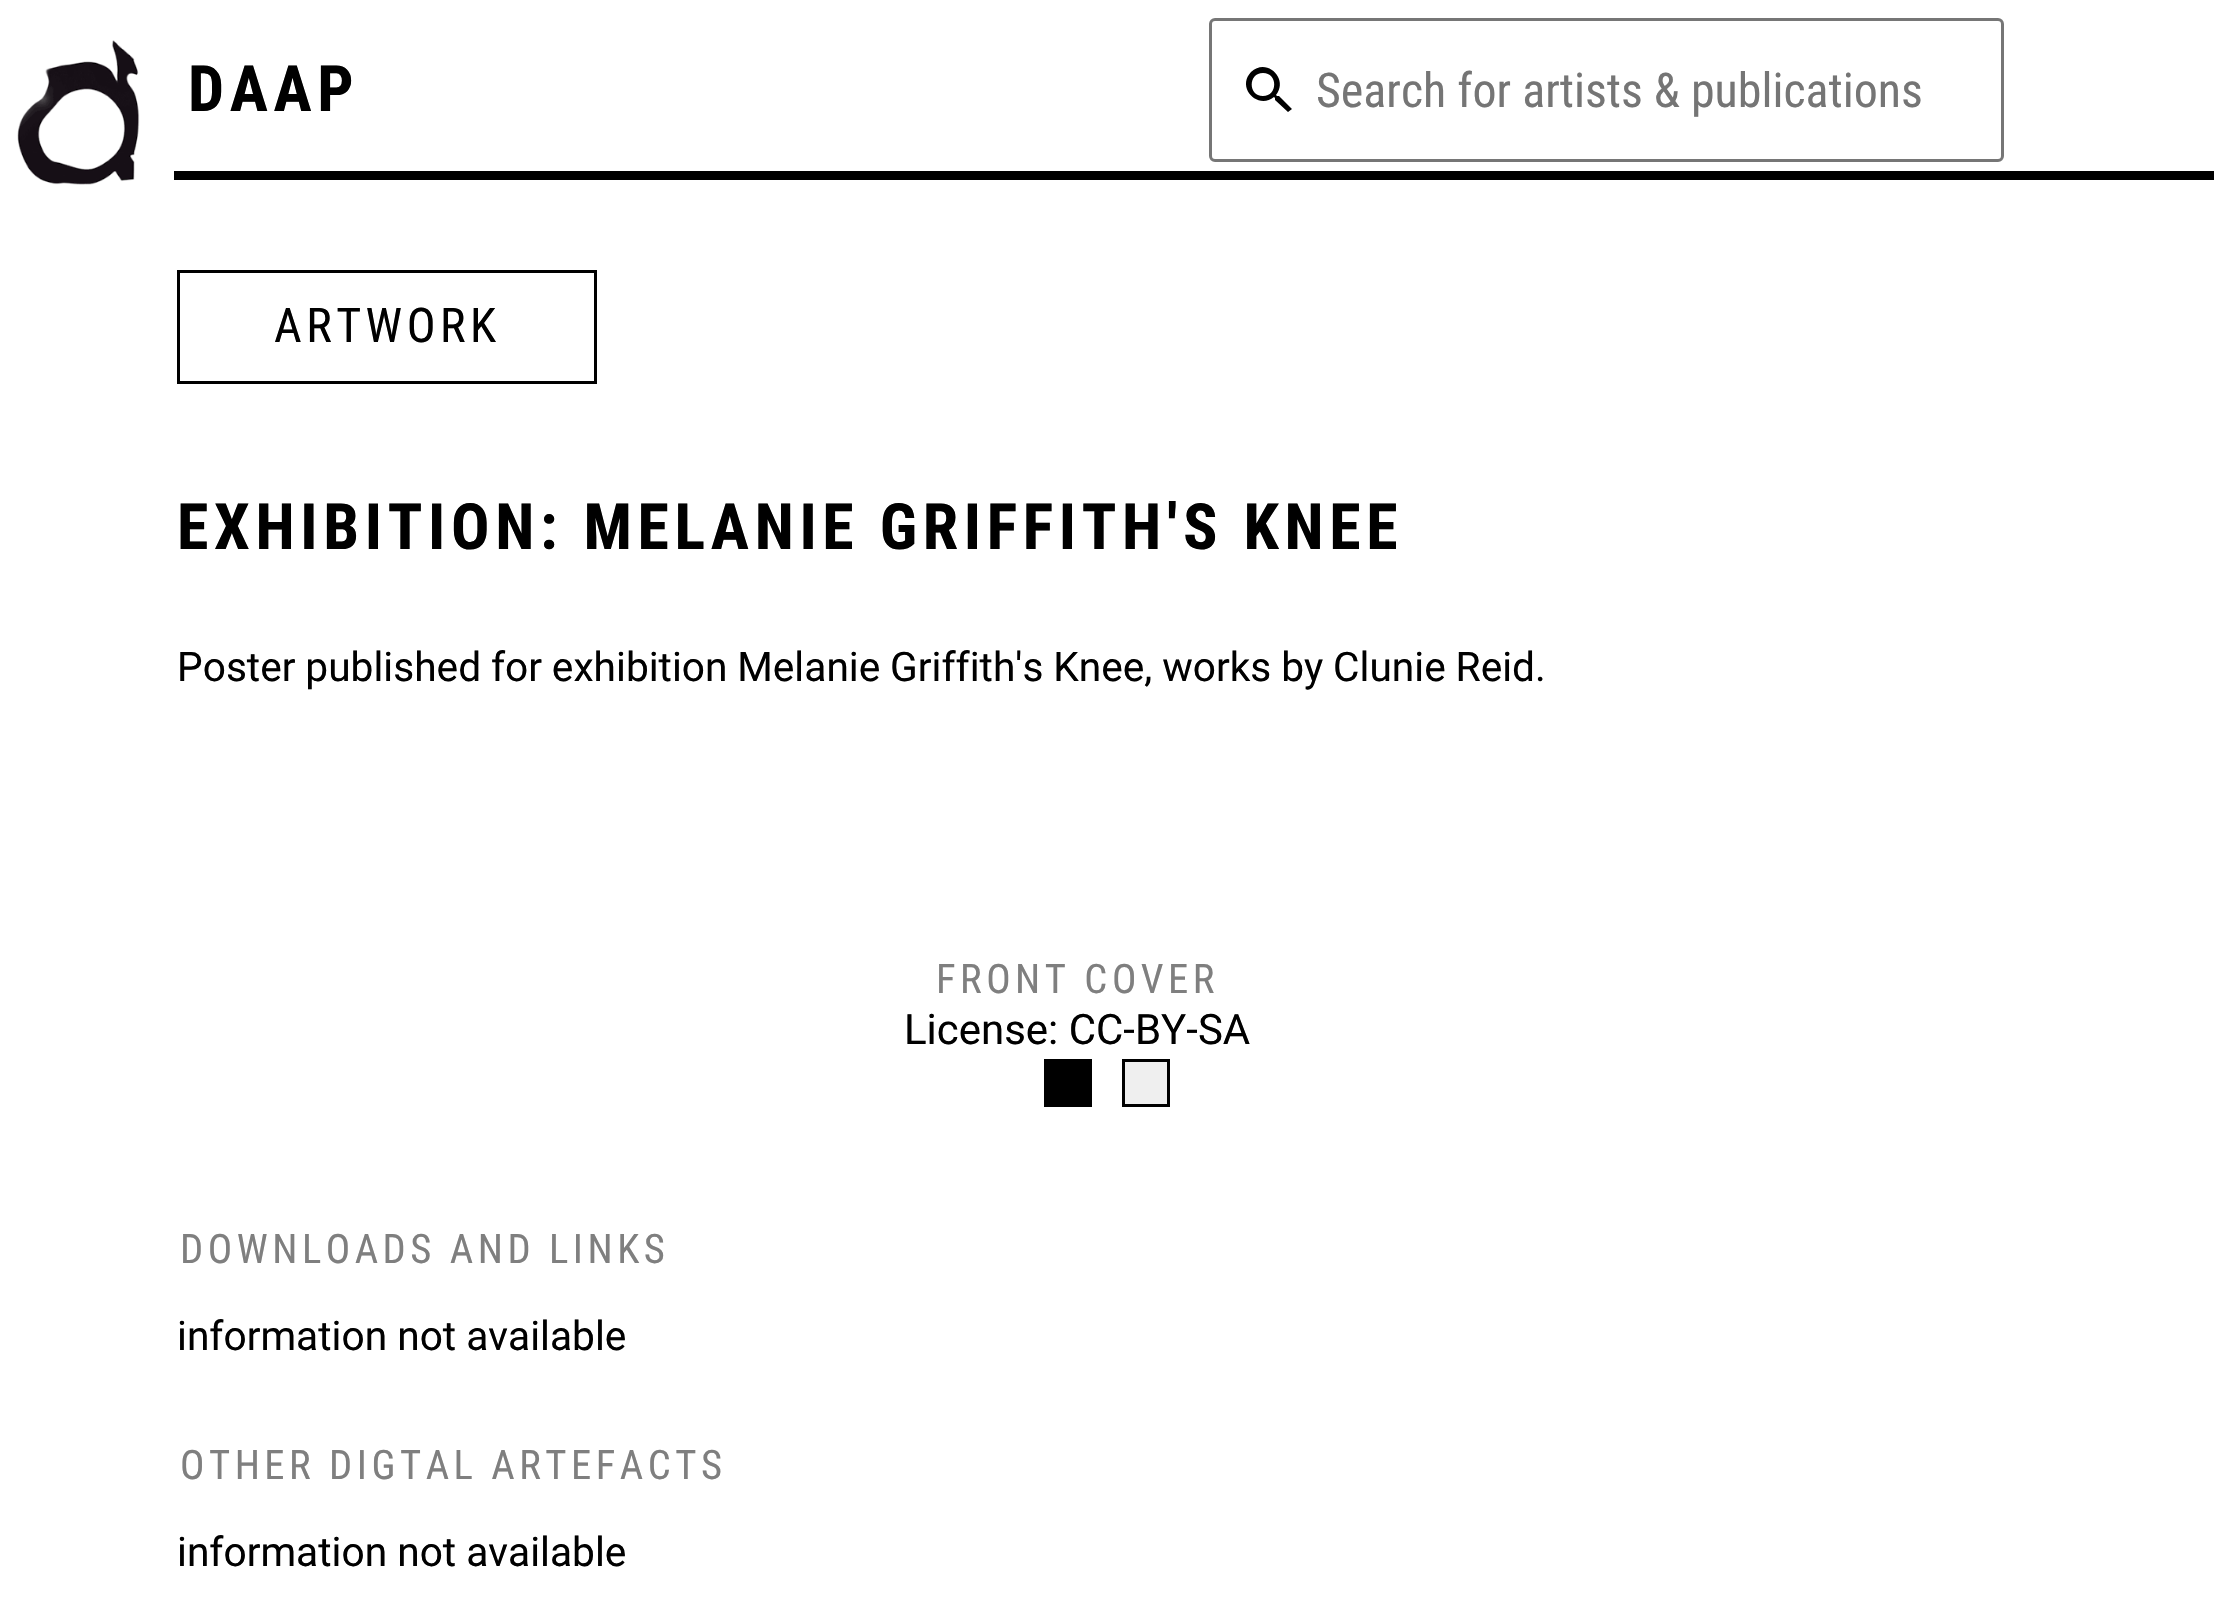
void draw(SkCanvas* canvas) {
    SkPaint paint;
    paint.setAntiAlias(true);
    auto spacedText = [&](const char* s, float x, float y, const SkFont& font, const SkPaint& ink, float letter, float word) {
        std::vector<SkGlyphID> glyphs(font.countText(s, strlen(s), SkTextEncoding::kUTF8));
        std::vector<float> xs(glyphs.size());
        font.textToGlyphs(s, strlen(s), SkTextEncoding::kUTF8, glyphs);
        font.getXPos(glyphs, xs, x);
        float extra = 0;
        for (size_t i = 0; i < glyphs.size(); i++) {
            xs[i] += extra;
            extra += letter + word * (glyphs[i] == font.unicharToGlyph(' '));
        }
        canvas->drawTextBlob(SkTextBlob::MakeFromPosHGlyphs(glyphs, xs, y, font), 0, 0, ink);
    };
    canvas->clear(0xFFFFFFFF);
    paint.setColor(0xFF000000);
    canvas->drawRect(SkRect::MakeXYWH(174, 171, 2040, 9), paint);
    canvas->drawImageRect(SkImages::DeferredFromEncodedData(SkData::MakeFromFileName("img1.png")), SkRect::MakeXYWH(0, 40, 174, 145), SkSamplingOptions());
    SkFont font1(fontMgr->matchFamilyStyle("Roboto Condensed", SkFontStyle::Bold()), 63.9f);
    font1.setSubpixel(true);
    spacedText("DAAP", 188, 111, font1, paint, 5.65f, 0);
    paint.setStyle(SkPaint::kStroke_Style);
    paint.setStrokeWidth(3);
    paint.setColor(0xFF767676);
    canvas->drawRoundRect(SkRect::MakeXYWH(1210.5f, 19.5f, 792, 141), 4.5f, 4.5f, paint);
    paint.setStyle(SkPaint::kFill_Style);
    paint.setColor(0xFF000000);
    canvas->drawPath(SkPathBuilder().moveTo(1279, 96).lineTo(1277, 96).lineTo(1276, 95).cubicTo(1289, 79, 1267, 57, 1251, 72).cubicTo(1236, 88, 1258, 110, 1274, 97).lineTo(1275, 98).lineTo(1275, 100).lineTo(1288, 112).lineTo(1292, 109).close().moveTo(1263, 96).cubicTo(1248, 96, 1248, 73, 1263, 73).cubicTo(1278, 73, 1278, 96, 1263, 96).close().detach(), paint);
    SkFont font2(fontMgr->matchFamilyStyle("Roboto Condensed", SkFontStyle::Normal()), 48);
    font2.setSubpixel(true);
    paint.setColor(0xFF757575);
    canvas->drawString("Search for artists & publications", 1316, 107, font2, paint);
    paint.setStyle(SkPaint::kStroke_Style);
    paint.setColor(0xFF000000);
    canvas->drawRect(SkRect::MakeXYWH(178.5f, 271.5f, 417, 111), paint);
    paint.setStyle(SkPaint::kFill_Style);
    spacedText("ARTWORK", 274, 342, font2, paint, 4.5f, 0);
    spacedText("EXHIBITION: MELANIE GRIFFITH'S KNEE", 177, 549, font1, paint, 5.65f, 0);
    SkFont font3(fontMgr->matchFamilyStyle("Roboto", SkFontStyle::Normal()), 40.7f);
    font3.setSubpixel(true);
    spacedText("Poster published for exhibition Melanie Griffith's Knee, works by Clunie Reid.", 177, 681, font3, paint, 0, -0.25f);
    SkFont font4(fontMgr->matchFamilyStyle("Roboto Condensed", SkFontStyle::Normal()), 40.7f);
    font4.setSubpixel(true);
    paint.setColor(0xFF7F7F7F);
    spacedText("FRONT COVER", 936, 993, font4, paint, 4.5f, 0);
    SkFont font5(fontMgr->matchFamilyStyle("Roboto", SkFontStyle::Normal()), 42);
    font5.setSubpixel(true);
    paint.setColor(0xFF000000);
    canvas->drawString("License: CC-BY-SA", 904, 1044, font5, paint);
    canvas->drawRect(SkRect::MakeXYWH(1044, 1059, 48, 48), paint);
    paint.setColor(0xFFEFEFEF);
    canvas->drawRect(SkRect::MakeXYWH(1123.5f, 1060.5f, 45, 45), paint);
    paint.setStyle(SkPaint::kStroke_Style);
    paint.setColor(0xFF000000);
    canvas->drawRect(SkRect::MakeXYWH(1123.5f, 1060.5f, 45, 45), paint);
    paint.setStyle(SkPaint::kFill_Style);
    paint.setColor(0xFF7F7F7F);
    spacedText("DOWNLOADS AND LINKS", 180, 1263, font4, paint, 4.5f, 0);
    paint.setColor(0xFF000000);
    canvas->drawString("information not available", 177, 1350, font3, paint);
    paint.setColor(0xFF7F7F7F);
    spacedText("OTHER DIGTAL ARTEFACTS", 180, 1479, font4, paint, 4.5f, 0);
    paint.setColor(0xFF000000);
    canvas->drawString("information not available", 177, 1566, font3, paint);
}
